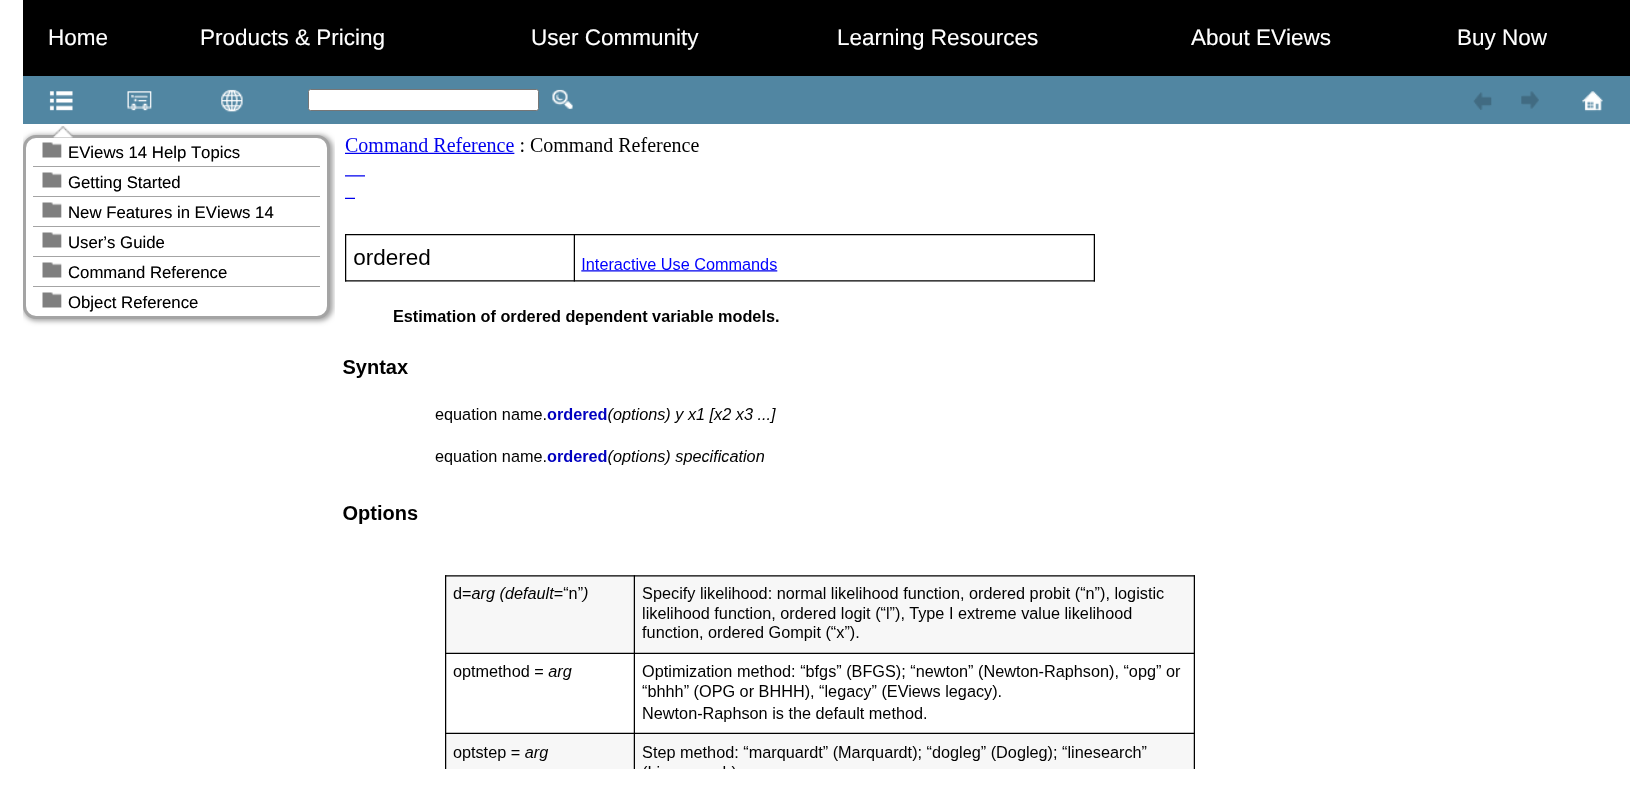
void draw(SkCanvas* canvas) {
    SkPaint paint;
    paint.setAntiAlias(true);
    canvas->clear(0xFFFFFFFF);
    paint.setColor(0xFF000000);
    canvas->drawRect(SkRect::MakeXYWH(23, 0, 1607, 76), paint);
    SkFont font1(fontMgr->matchFamilyStyle("Liberation Sans", SkFontStyle::Normal()), 22.5f);
    font1.setSubpixel(true);
    paint.setColor(0xFFFFFFFF);
    canvas->drawString("Home", 48, 45, font1, paint);
    canvas->drawString("Products & Pricing", 200, 45, font1, paint);
    canvas->drawString("User Community", 531, 45, font1, paint);
    canvas->drawString("Learning Resources", 837, 45, font1, paint);
    canvas->drawString("About EViews", 1191, 45, font1, paint);
    canvas->drawString("Buy Now", 1457, 45, font1, paint);
    paint.setColor(0xFF5186A2);
    canvas->drawRect(SkRect::MakeXYWH(23, 76, 1607, 48), paint);
    canvas->drawImageRect(SkImages::DeferredFromEncodedData(SkData::MakeFromFileName("img1.png")), SkRect::MakeXYWH(49, 91, 24, 20), SkSamplingOptions());
    canvas->drawImageRect(SkImages::DeferredFromEncodedData(SkData::MakeFromFileName("img2.png")), SkRect::MakeXYWH(127, 91, 25, 20), SkSamplingOptions());
    canvas->drawImageRect(SkImages::DeferredFromEncodedData(SkData::MakeFromFileName("img3.png")), SkRect::MakeXYWH(221, 89, 22, 24), SkSamplingOptions());
    paint.setColor(0xFFFFFFFF);
    canvas->drawRoundRect(SkRect::MakeXYWH(308.5f, 89.5f, 230, 21), 2, 2, paint);
    paint.setStyle(SkPaint::kStroke_Style);
    paint.setStrokeWidth(1);
    paint.setColor(0xFF767676);
    canvas->drawRoundRect(SkRect::MakeXYWH(308.5f, 89.5f, 230, 21), 2, 2, paint);
    canvas->drawImageRect(SkImages::DeferredFromEncodedData(SkData::MakeFromFileName("img4.png")), SkRect::MakeXYWH(552, 89, 21, 21), SkSamplingOptions());
    canvas->drawImageRect(SkImages::DeferredFromEncodedData(SkData::MakeFromFileName("img5.png")), SkRect::MakeXYWH(1473, 92, 19, 18), SkSamplingOptions());
    canvas->drawImageRect(SkImages::DeferredFromEncodedData(SkData::MakeFromFileName("img6.png")), SkRect::MakeXYWH(1521, 91, 18, 18), SkSamplingOptions());
    canvas->drawImageRect(SkImages::DeferredFromEncodedData(SkData::MakeFromFileName("img7.png")), SkRect::MakeXYWH(1582, 91, 21, 21), SkSamplingOptions());
    canvas->save();
    canvas->clipRect(SkRect::MakeXYWH(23, 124, 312, 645));
    paint.setStyle(SkPaint::kFill_Style);
    paint.setColor(0xFFA4A4A4);
    paint.setMaskFilter(SkMaskFilter::MakeBlur(kNormal_SkBlurStyle, 2.5f));
    canvas->drawRoundRect(SkRect::MakeXYWH(23, 135, 310, 186), 14, 14, paint);
    paint.setMaskFilter(nullptr);
    canvas->restore();
    paint.setColor(0xFFFFFFFF);
    canvas->drawRoundRect(SkRect::MakeXYWH(24.5f, 136.5f, 304, 181), 11.5f, 11.5f, paint);
    paint.setStyle(SkPaint::kStroke_Style);
    paint.setStrokeWidth(3);
    paint.setColor(0xFFA4A4A4);
    canvas->drawRoundRect(SkRect::MakeXYWH(24.5f, 136.5f, 304, 181), 11.5f, 11.5f, paint);
    canvas->drawImageRect(SkImages::DeferredFromEncodedData(SkData::MakeFromFileName("img8.png")), SkRect::MakeXYWH(53, 126, 20, 12), SkSamplingOptions());
    canvas->drawImageRect(SkImages::DeferredFromEncodedData(SkData::MakeFromFileName("img9.png")), SkRect::MakeXYWH(42, 142, 20, 16), SkSamplingOptions());
    SkFont font2(fontMgr->matchFamilyStyle("Liberation Sans", SkFontStyle::Normal()), 16.75f);
    font2.setSubpixel(true);
    paint.setStyle(SkPaint::kFill_Style);
    paint.setColor(0xFF000000);
    canvas->drawString("EViews 14 Help Topics", 68, 158, font2, paint);
    paint.setColor(0xFFA4A4A4);
    canvas->drawRect(SkRect::MakeXYWH(33, 166, 287, 1), paint);
    canvas->drawImageRect(SkImages::DeferredFromEncodedData(SkData::MakeFromFileName("img9.png")), SkRect::MakeXYWH(42, 172, 20, 16), SkSamplingOptions());
    paint.setColor(0xFF000000);
    canvas->drawString("Getting Started", 68, 188, font2, paint);
    paint.setColor(0xFFA4A4A4);
    canvas->drawRect(SkRect::MakeXYWH(33, 196, 287, 1), paint);
    canvas->drawImageRect(SkImages::DeferredFromEncodedData(SkData::MakeFromFileName("img9.png")), SkRect::MakeXYWH(42, 202, 20, 16), SkSamplingOptions());
    paint.setColor(0xFF000000);
    canvas->drawString("New Features in EViews 14", 68, 218, font2, paint);
    paint.setColor(0xFFA4A4A4);
    canvas->drawRect(SkRect::MakeXYWH(33, 226, 287, 1), paint);
    canvas->drawImageRect(SkImages::DeferredFromEncodedData(SkData::MakeFromFileName("img9.png")), SkRect::MakeXYWH(42, 232, 20, 16), SkSamplingOptions());
    paint.setColor(0xFF000000);
    canvas->drawString("User’s Guide", 68, 248, font2, paint);
    paint.setColor(0xFFA4A4A4);
    canvas->drawRect(SkRect::MakeXYWH(33, 256, 287, 1), paint);
    canvas->drawImageRect(SkImages::DeferredFromEncodedData(SkData::MakeFromFileName("img9.png")), SkRect::MakeXYWH(42, 262, 20, 16), SkSamplingOptions());
    paint.setColor(0xFF000000);
    canvas->drawString("Command Reference", 68, 278, font2, paint);
    paint.setColor(0xFFA4A4A4);
    canvas->drawRect(SkRect::MakeXYWH(33, 286, 287, 1), paint);
    canvas->drawImageRect(SkImages::DeferredFromEncodedData(SkData::MakeFromFileName("img9.png")), SkRect::MakeXYWH(42, 292, 20, 16), SkSamplingOptions());
    paint.setColor(0xFF000000);
    canvas->drawString("Object Reference", 68, 308, font2, paint);
    canvas->drawImageRect(SkImages::DeferredFromEncodedData(SkData::MakeFromFileName("img10.png")), SkRect::MakeXYWH(343, 137, 852, 632), SkSamplingOptions());
}
